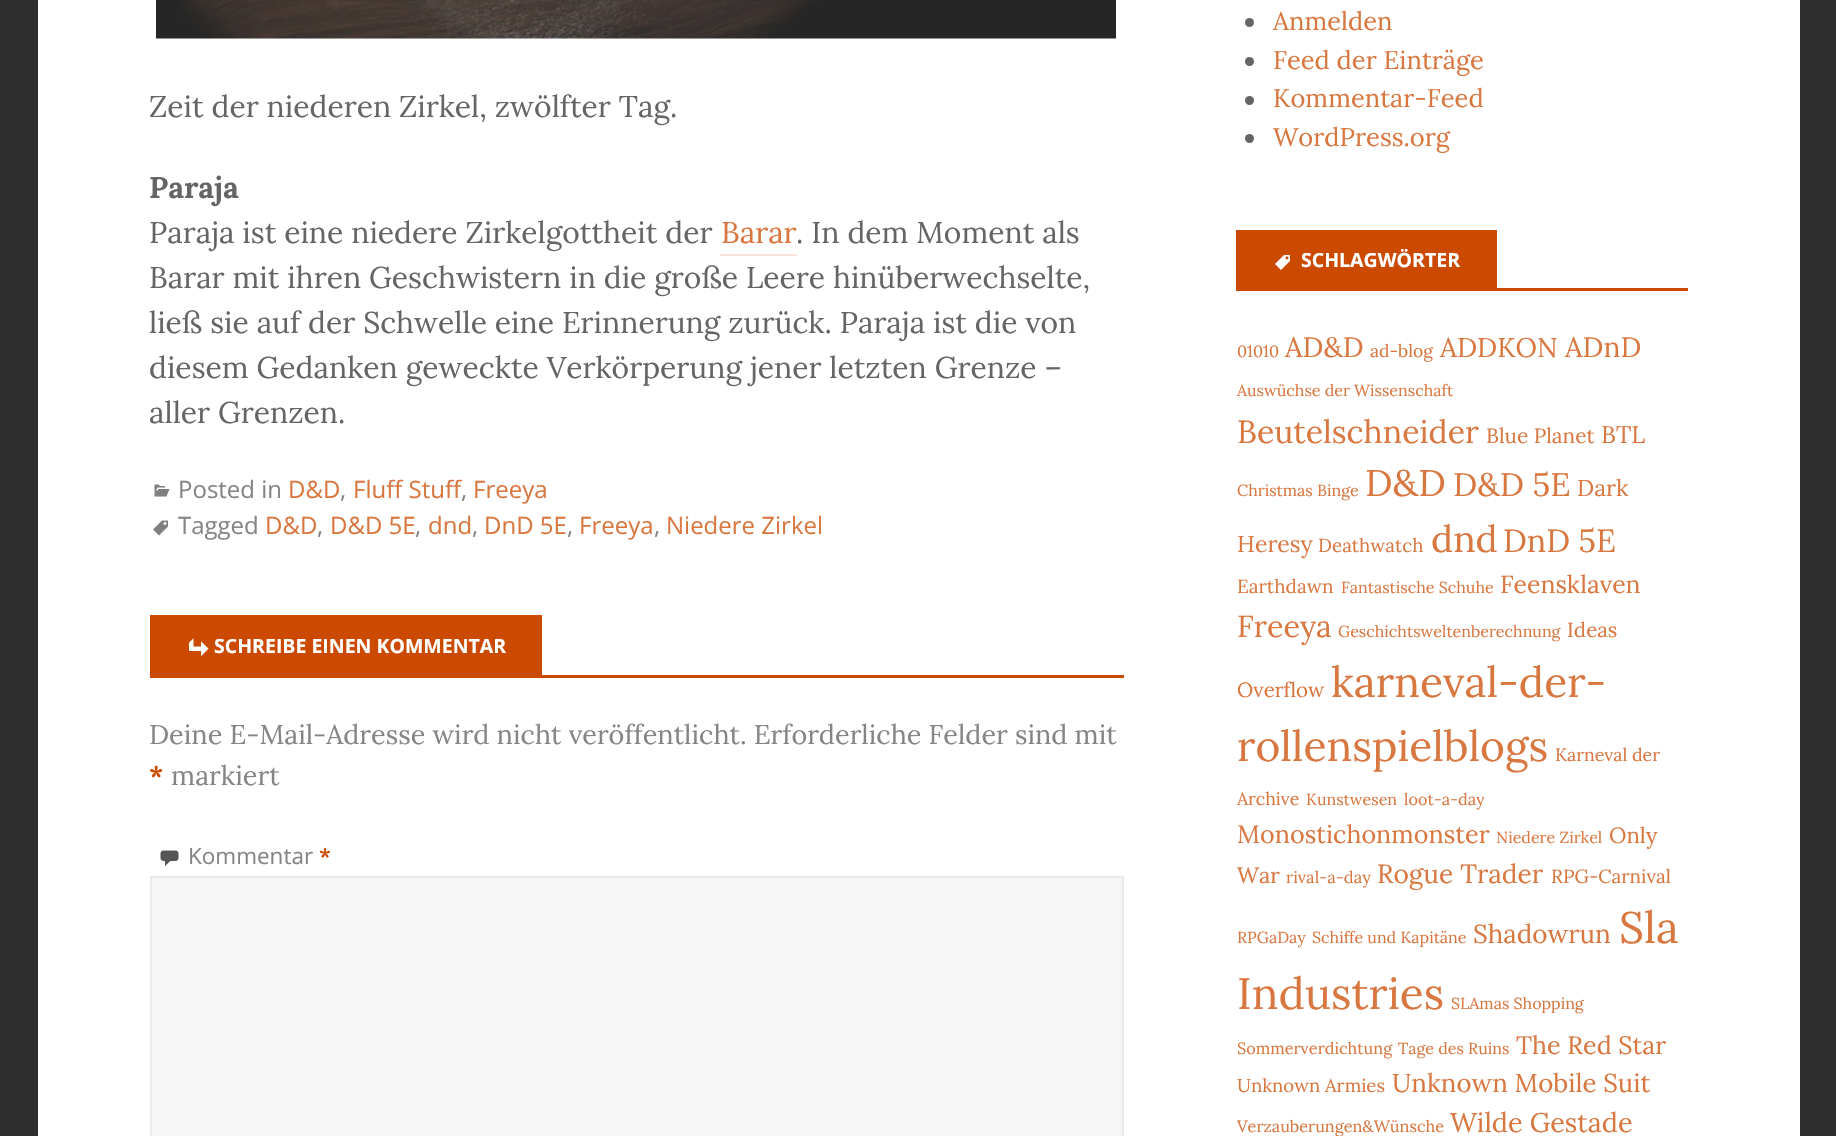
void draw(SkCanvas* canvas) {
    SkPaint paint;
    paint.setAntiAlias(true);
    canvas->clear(0xFF2D2D2D);
    paint.setColor(0xFFFFFFFF);
    canvas->drawRect(SkRect::MakeXYWH(38, 0, 1762, 1136), paint);
    canvas->drawImageRect(SkImages::DeferredFromEncodedData(SkData::MakeFromFileName("img1.png")), SkRect::MakeXYWH(156, 0, 960, 39), SkSamplingOptions());
    SkFont font1(fontMgr->matchFamilyStyle("Lora", SkFontStyle::Normal()), 30);
    font1.setSubpixel(true);
    paint.setColor(0xFF656565);
    canvas->drawString("Zeit der niederen Zirkel, zwölfter Tag.", 149, 117, font1, paint);
    SkFont font2(fontMgr->matchFamilyStyle("Lora", SkFontStyle::Bold()), 30);
    font2.setSubpixel(true);
    canvas->drawString("Paraja", 149, 198, font2, paint);
    canvas->drawString("Paraja ist eine niedere Zirkelgottheit der", 149, 243, font1, paint);
    paint.setColor(0xFFD97740);
    canvas->drawString("Barar", 721, 243, font1, paint);
    paint.setColor(0xFFF7E4D9);
    canvas->drawRect(SkRect::MakeXYWH(720, 254, 77, 2), paint);
    paint.setColor(0xFF656565);
    canvas->drawString(". In dem Moment als", 796, 243, font1, paint);
    canvas->drawString("Barar mit ihren Geschwistern in die große Leere hinüberwechselte,", 149, 288, font1, paint);
    canvas->drawString("ließ sie auf der Schwelle eine Erinnerung zurück. Paraja ist die von", 149, 333, font1, paint);
    canvas->drawString("diesem Gedanken geweckte Verkörperung jener letzten Grenze –", 149, 378, font1, paint);
    canvas->drawString("aller Grenzen.", 149, 423, font1, paint);
    canvas->drawImageRect(SkImages::DeferredFromEncodedData(SkData::MakeFromFileName("img2.png")), SkRect::MakeXYWH(154, 484, 16, 13), SkSamplingOptions());
    SkFont font3(fontMgr->matchFamilyStyle("Open Sans", SkFontStyle::Normal()), 24);
    font3.setSubpixel(true);
    paint.setColor(0xFF858585);
    canvas->drawString("Posted in", 178, 498, font3, paint);
    paint.setColor(0xFFD97740);
    canvas->drawString("D&D", 288, 498, font3, paint);
    canvas->drawString("Fluff Stuff", 353, 498, font3, paint);
    canvas->drawString("Freeya", 473, 498, font3, paint);
    paint.setColor(0xFF858585);
    canvas->drawString(",", 340, 498, font3, paint);
    canvas->drawString(",", 461, 498, font3, paint);
    canvas->drawImageRect(SkImages::DeferredFromEncodedData(SkData::MakeFromFileName("img3.png")), SkRect::MakeXYWH(153, 520, 15, 16), SkSamplingOptions());
    canvas->drawString("Tagged", 178, 534, font3, paint);
    paint.setColor(0xFFD97740);
    canvas->drawString("D&D", 265, 534, font3, paint);
    paint.setColor(0xFF858585);
    canvas->drawString(",", 317, 534, font3, paint);
    paint.setColor(0xFFD97740);
    canvas->drawString("D&D 5E", 330, 534, font3, paint);
    paint.setColor(0xFF858585);
    canvas->drawString(",", 415, 534, font3, paint);
    paint.setColor(0xFFD97740);
    canvas->drawString("dnd", 428, 534, font3, paint);
    paint.setColor(0xFF858585);
    canvas->drawString(",", 472, 534, font3, paint);
    paint.setColor(0xFFD97740);
    canvas->drawString("DnD 5E", 484, 534, font3, paint);
    paint.setColor(0xFF858585);
    canvas->drawString(",", 567, 534, font3, paint);
    paint.setColor(0xFFD97740);
    canvas->drawString("Freeya", 579, 534, font3, paint);
    paint.setColor(0xFF858585);
    canvas->drawString(",", 654, 534, font3, paint);
    paint.setColor(0xFFD97740);
    canvas->drawString("Niedere Zirkel", 666, 534, font3, paint);
    paint.setColor(0xFFCC4A00);
    canvas->drawRect(SkRect::MakeXYWH(150, 675, 974, 3), paint);
    canvas->drawRect(SkRect::MakeXYWH(150, 615, 392, 60), paint);
    canvas->drawImageRect(SkImages::DeferredFromEncodedData(SkData::MakeFromFileName("img4.png")), SkRect::MakeXYWH(189, 638, 20, 19), SkSamplingOptions());
    SkFont font4(fontMgr->matchFamilyStyle("Open Sans", SkFontStyle::Bold()), 19.5f);
    font4.setSubpixel(true);
    paint.setColor(0xFFFFFFFF);
    canvas->drawString("SCHREIBE EINEN KOMMENTAR", 214, 653, font4, paint);
    SkFont font5(fontMgr->matchFamilyStyle("Lora", SkFontStyle::Normal()), 27);
    font5.setSubpixel(true);
    paint.setColor(0xFF858585);
    canvas->drawString("Deine E-Mail-Adresse wird nicht veröffentlicht. Erforderliche Felder sind mit", 149, 744, font5, paint);
    SkFont font6(fontMgr->matchFamilyStyle("Lora", SkFontStyle::Bold()), 27);
    font6.setSubpixel(true);
    paint.setColor(0xFFCC4A00);
    canvas->drawString("*", 149, 785, font6, paint);
    paint.setColor(0xFF858585);
    canvas->drawString("markiert", 171, 785, font5, paint);
    canvas->drawImageRect(SkImages::DeferredFromEncodedData(SkData::MakeFromFileName("img5.png")), SkRect::MakeXYWH(160, 850, 19, 17), SkSamplingOptions());
    SkFont font7(fontMgr->matchFamilyStyle("Open Sans", SkFontStyle::Normal()), 22.5f);
    font7.setSubpixel(true);
    canvas->drawString("Kommentar", 188, 864, font7, paint);
    SkFont font8(fontMgr->matchFamilyStyle("Lora", SkFontStyle::Bold()), 22.5f);
    font8.setSubpixel(true);
    paint.setColor(0xFFCC4A00);
    canvas->drawString("*", 319, 864, font8, paint);
    paint.setColor(0xFFF6F6F6);
    canvas->drawRect(SkRect::MakeXYWH(151, 877, 972, 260), paint);
    paint.setStyle(SkPaint::kStroke_Style);
    paint.setStrokeWidth(2);
    paint.setColor(0xFFEAEAEA);
    canvas->drawRect(SkRect::MakeXYWH(151, 877, 972, 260), paint);
    paint.setStyle(SkPaint::kFill_Style);
    paint.setColor(0xFF656565);
    canvas->drawCircle(1249.5f, 22.5f, 4.5f, paint);
    SkFont font9(fontMgr->matchFamilyStyle("Lora", SkFontStyle::Normal()), 25.5f);
    font9.setSubpixel(true);
    paint.setColor(0xFFD97740);
    canvas->drawString("Anmelden", 1273, 30, font9, paint);
    paint.setColor(0xFF656565);
    canvas->drawCircle(1249.5f, 61.5f, 4.5f, paint);
    paint.setColor(0xFFD97740);
    canvas->drawString("Feed der Einträge", 1273, 69, font9, paint);
    paint.setColor(0xFF656565);
    canvas->drawCircle(1249.5f, 100.5f, 4.5f, paint);
    paint.setColor(0xFFD97740);
    canvas->drawString("Kommentar-Feed", 1273, 107, font9, paint);
    paint.setColor(0xFF656565);
    canvas->drawCircle(1249.5f, 138.5f, 4.5f, paint);
    paint.setColor(0xFFD97740);
    canvas->drawString("WordPress.org", 1273, 146, font9, paint);
    paint.setColor(0xFFCC4A00);
    canvas->drawRect(SkRect::MakeXYWH(1236, 288, 452, 3), paint);
    canvas->drawRect(SkRect::MakeXYWH(1236, 230, 261, 58), paint);
    canvas->drawImageRect(SkImages::DeferredFromEncodedData(SkData::MakeFromFileName("img6.png")), SkRect::MakeXYWH(1275, 255, 15, 15), SkSamplingOptions());
    paint.setColor(0xFFFFFFFF);
    canvas->drawString("SCHLAGWÖRTER", 1301, 267, font4, paint);
    SkFont font10(fontMgr->matchFamilyStyle("Lora", SkFontStyle::Normal()), 16.25f);
    font10.setSubpixel(true);
    paint.setColor(0xFFD97740);
    canvas->drawString("01010", 1237, 357, font10, paint);
    SkFont font11(fontMgr->matchFamilyStyle("Lora", SkFontStyle::Normal()), 28);
    font11.setSubpixel(true);
    canvas->drawString("AD&D", 1285, 357, font11, paint);
    SkFont font12(fontMgr->matchFamilyStyle("Lora", SkFontStyle::Normal()), 17.5f);
    font12.setSubpixel(true);
    canvas->drawString("ad-blog", 1370, 357, font12, paint);
    canvas->drawString("ADDKON", 1440, 357, font5, paint);
    canvas->drawString("ADnD", 1565, 357, font11, paint);
    SkFont font13(fontMgr->matchFamilyStyle("Lora", SkFontStyle::Normal()), 16);
    font13.setSubpixel(true);
    canvas->drawString("Auswüchse der Wissenschaft", 1237, 396, font13, paint);
    SkFont font14(fontMgr->matchFamilyStyle("Lora", SkFontStyle::Normal()), 32);
    font14.setSubpixel(true);
    canvas->drawString("Beutelschneider", 1237, 443, font14, paint);
    SkFont font15(fontMgr->matchFamilyStyle("Lora", SkFontStyle::Normal()), 20.75f);
    font15.setSubpixel(true);
    canvas->drawString("Blue Planet", 1486, 443, font15, paint);
    SkFont font16(fontMgr->matchFamilyStyle("Lora", SkFontStyle::Normal()), 24);
    font16.setSubpixel(true);
    canvas->drawString("BTL", 1601, 443, font16, paint);
    canvas->drawString("Christmas Binge", 1237, 496, font13, paint);
    SkFont font17(fontMgr->matchFamilyStyle("Lora", SkFontStyle::Normal()), 37);
    font17.setSubpixel(true);
    canvas->drawString("D&D", 1365, 496, font17, paint);
    SkFont font18(fontMgr->matchFamilyStyle("Lora", SkFontStyle::Normal()), 32.5f);
    font18.setSubpixel(true);
    canvas->drawString("D&D 5E", 1453, 496, font18, paint);
    SkFont font19(fontMgr->matchFamilyStyle("Lora", SkFontStyle::Normal()), 23);
    font19.setSubpixel(true);
    canvas->drawString("Dark", 1577, 496, font19, paint);
    canvas->drawString("Heresy", 1237, 552, font19, paint);
    SkFont font20(fontMgr->matchFamilyStyle("Lora", SkFontStyle::Normal()), 18.75f);
    font20.setSubpixel(true);
    canvas->drawString("Deathwatch", 1318, 552, font20, paint);
    canvas->drawString("dnd", 1431, 552, font17, paint);
    canvas->drawString("DnD 5E", 1503, 552, font14, paint);
    SkFont font21(fontMgr->matchFamilyStyle("Lora", SkFontStyle::Normal()), 19);
    font21.setSubpixel(true);
    canvas->drawString("Earthdawn", 1237, 593, font21, paint);
    canvas->drawString("Fantastische Schuhe", 1341, 593, font13, paint);
    SkFont font22(fontMgr->matchFamilyStyle("Lora", SkFontStyle::Normal()), 24.75f);
    font22.setSubpixel(true);
    canvas->drawString("Feensklaven", 1500, 593, font22, paint);
    SkFont font23(fontMgr->matchFamilyStyle("Lora", SkFontStyle::Normal()), 30.5f);
    font23.setSubpixel(true);
    canvas->drawString("Freeya", 1237, 637, font23, paint);
    canvas->drawString("Geschichtsweltenberechnung", 1338, 637, font13, paint);
    SkFont font24(fontMgr->matchFamilyStyle("Lora", SkFontStyle::Normal()), 20.5f);
    font24.setSubpixel(true);
    canvas->drawString("Ideas", 1567, 637, font24, paint);
    canvas->drawString("Overflow", 1237, 697, font24, paint);
    SkFont font25(fontMgr->matchFamilyStyle("Lora", SkFontStyle::Normal()), 42.5f);
    font25.setSubpixel(true);
    canvas->drawString("karneval-der-", 1331, 697, font25, paint);
    canvas->drawString("rollenspielblogs", 1237, 761, font25, paint);
    SkFont font26(fontMgr->matchFamilyStyle("Lora", SkFontStyle::Normal()), 17.75f);
    font26.setSubpixel(true);
    canvas->drawString("Karneval der", 1555, 761, font26, paint);
    canvas->drawString("Archive", 1237, 805, font26, paint);
    canvas->drawString("Kunstwesen", 1306, 805, font13, paint);
    canvas->drawString("loot-a-day", 1404, 805, font10, paint);
    SkFont font27(fontMgr->matchFamilyStyle("Lora", SkFontStyle::Normal()), 25.1f);
    font27.setSubpixel(true);
    canvas->drawString("Monostichonmonster", 1237, 843, font27, paint);
    canvas->drawString("Niedere Zirkel", 1496, 843, font13, paint);
    SkFont font28(fontMgr->matchFamilyStyle("Lora", SkFontStyle::Normal()), 22);
    font28.setSubpixel(true);
    canvas->drawString("Only", 1609, 843, font28, paint);
    canvas->drawString("War", 1237, 883, font28, paint);
    SkFont font29(fontMgr->matchFamilyStyle("Lora", SkFontStyle::Normal()), 16.5f);
    font29.setSubpixel(true);
    canvas->drawString("rival-a-day", 1286, 883, font29, paint);
    SkFont font30(fontMgr->matchFamilyStyle("Lora", SkFontStyle::Normal()), 26.25f);
    font30.setSubpixel(true);
    canvas->drawString("Rogue Trader", 1377, 883, font30, paint);
    canvas->drawString("RPG-Carnival", 1551, 883, font21, paint);
    canvas->drawString("RPGaDay", 1237, 943, font13, paint);
    canvas->drawString("Schiffe und Kapitäne", 1312, 943, font13, paint);
    SkFont font31(fontMgr->matchFamilyStyle("Lora", SkFontStyle::Normal()), 26);
    font31.setSubpixel(true);
    canvas->drawString("Shadowrun", 1473, 943, font31, paint);
    SkFont font32(fontMgr->matchFamilyStyle("Lora", SkFontStyle::Normal()), 44);
    font32.setSubpixel(true);
    canvas->drawString("Sla", 1619, 943, font32, paint);
    canvas->drawString("Industries", 1237, 1009, font32, paint);
    canvas->drawString("SLAmas Shopping", 1451, 1009, font13, paint);
    canvas->drawString("Sommerverdichtung", 1237, 1054, font10, paint);
    canvas->drawString("Tage des Ruins", 1398, 1054, font13, paint);
    canvas->drawString("The Red Star", 1516, 1054, font27, paint);
    SkFont font33(fontMgr->matchFamilyStyle("Lora", SkFontStyle::Normal()), 18.5f);
    font33.setSubpixel(true);
    canvas->drawString("Unknown Armies", 1237, 1092, font33, paint);
    SkFont font34(fontMgr->matchFamilyStyle("Lora", SkFontStyle::Normal()), 25.75f);
    font34.setSubpixel(true);
    canvas->drawString("Unknown Mobile Suit", 1392, 1092, font34, paint);
    canvas->drawString("Verzauberungen&Wünsche", 1237, 1132, font10, paint);
    canvas->drawString("Wilde Gestade", 1450, 1132, font5, paint);
}
